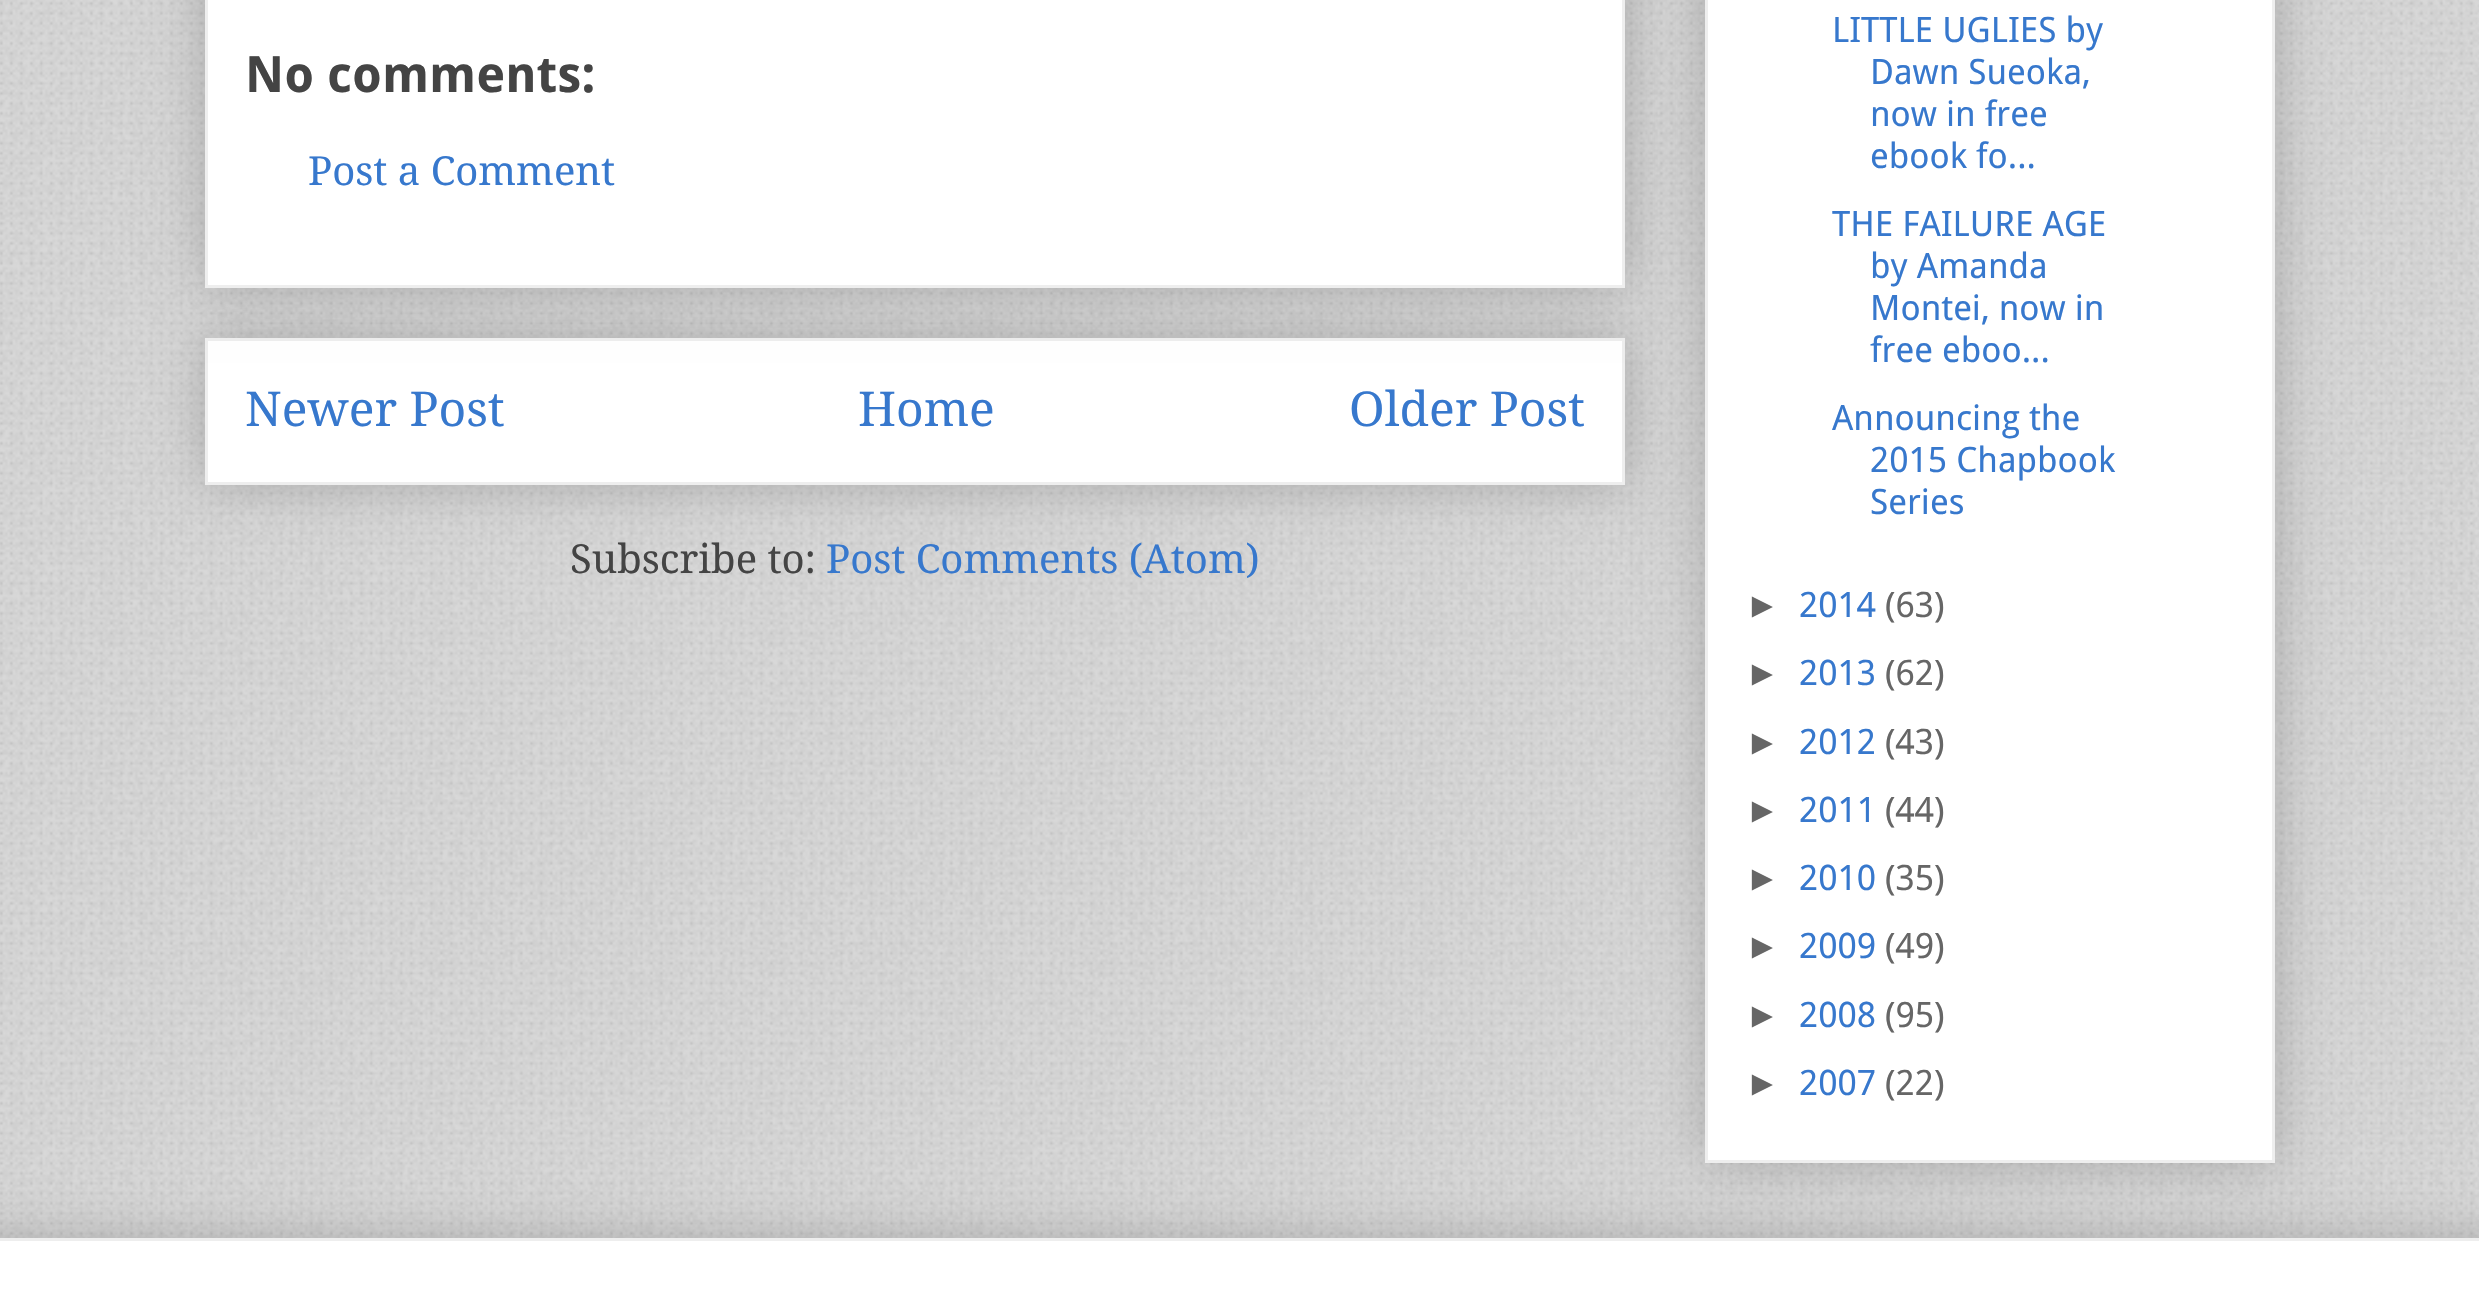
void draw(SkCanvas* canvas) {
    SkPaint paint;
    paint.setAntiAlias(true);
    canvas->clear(0xFFFFFFFF);
    canvas->drawImageRect(SkImages::DeferredFromEncodedData(SkData::MakeFromFileName("img1.png")), SkRect::MakeXYWH(0, 0, 2479, 1238), SkSamplingOptions());
    paint.setColor(0x33000000);
    paint.setMaskFilter(SkMaskFilter::MakeBlur(kNormal_SkBlurStyle, 25));
    canvas->drawRect(SkRect::MakeXYWH(205, 338, 1420, 147), paint);
    paint.setMaskFilter(nullptr);
    paint.setColor(0xFFFFFFFF);
    canvas->drawRect(SkRect::MakeXYWH(206.5f, 339.5f, 1417, 144), paint);
    paint.setStyle(SkPaint::kStroke_Style);
    paint.setStrokeWidth(3);
    paint.setColor(0xFFEEEEEE);
    canvas->drawRect(SkRect::MakeXYWH(206.5f, 339.5f, 1417, 144), paint);
    paint.setStyle(SkPaint::kFill_Style);
    paint.setColor(0x33000000);
    paint.setMaskFilter(SkMaskFilter::MakeBlur(kNormal_SkBlurStyle, 25));
    canvas->drawRect(SkRect::MakeXYWH(205, -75, 1420, 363), paint);
    paint.setMaskFilter(nullptr);
    paint.setColor(0xFFFFFFFF);
    canvas->drawRect(SkRect::MakeXYWH(206.5f, -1.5f, 1417, 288), paint);
    paint.setStyle(SkPaint::kStroke_Style);
    paint.setColor(0xFFEEEEEE);
    canvas->drawRect(SkRect::MakeXYWH(206.5f, -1.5f, 1417, 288), paint);
    SkFont font1(fontMgr->matchFamilyStyle("Droid Sans", SkFontStyle::Bold()), 50);
    font1.setSubpixel(true);
    paint.setStyle(SkPaint::kFill_Style);
    paint.setColor(0xFF444444);
    canvas->drawString("No comments:", 245, 92, font1, paint);
    SkFont font2(fontMgr->matchFamilyStyle("Droid Serif", SkFontStyle::Normal()), 40);
    font2.setSubpixel(true);
    paint.setColor(0xFF3778CD);
    canvas->drawString("Post a Comment", 308, 185, font2, paint);
    SkFont font3(fontMgr->matchFamilyStyle("Droid Serif", SkFontStyle::Normal()), 48);
    font3.setSubpixel(true);
    canvas->drawString("Newer Post", 245, 426, font3, paint);
    canvas->drawString("Home", 858, 426, font3, paint);
    canvas->drawString("Older Post", 1349, 426, font3, paint);
    paint.setColor(0xFF444444);
    canvas->drawString("Subscribe to:", 570, 573, font2, paint);
    paint.setColor(0xFF3778CD);
    canvas->drawString("Post Comments (Atom)", 826, 573, font2, paint);
    paint.setColor(0x33000000);
    paint.setMaskFilter(SkMaskFilter::MakeBlur(kNormal_SkBlurStyle, 25));
    canvas->drawRect(SkRect::MakeXYWH(1705, -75, 570, 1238), paint);
    paint.setMaskFilter(nullptr);
    paint.setColor(0xFFFFFFFF);
    canvas->drawRect(SkRect::MakeXYWH(1706.5f, -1.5f, 567, 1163), paint);
    paint.setStyle(SkPaint::kStroke_Style);
    paint.setColor(0xFFEEEEEE);
    canvas->drawRect(SkRect::MakeXYWH(1706.5f, -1.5f, 567, 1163), paint);
    SkFont font4(fontMgr->matchFamilyStyle("Droid Sans", SkFontStyle::Normal()), 35);
    font4.setSubpixel(true);
    paint.setStyle(SkPaint::kFill_Style);
    paint.setColor(0xFF3778CD);
    canvas->drawString("LITTLE UGLIES by", 1832, 42, font4, paint);
    canvas->drawString("Dawn Sueoka,", 1870, 84, font4, paint);
    canvas->drawString("now in free", 1870, 126, font4, paint);
    canvas->drawString("ebook fo...", 1870, 168, font4, paint);
    canvas->drawString("THE FAILURE AGE", 1832, 236, font4, paint);
    canvas->drawString("by Amanda", 1870, 278, font4, paint);
    canvas->drawString("Montei, now in", 1870, 320, font4, paint);
    canvas->drawString("free eboo...", 1870, 362, font4, paint);
    canvas->drawString("Announcing the", 1832, 430, font4, paint);
    canvas->drawString("2015 Chapbook", 1870, 472, font4, paint);
    canvas->drawString("Series", 1870, 514, font4, paint);
    SkFont font5(fontMgr->matchFamilyStyle("Liberation Sans", SkFontStyle::Normal()), 35);
    font5.setSubpixel(true);
    paint.setColor(0xFF666666);
    canvas->drawString("►", 1745, 617, font5, paint);
    paint.setColor(0xFF3778CD);
    canvas->drawString("2014", 1799, 617, font4, paint);
    paint.setColor(0xFF666666);
    canvas->drawString("(63)", 1885, 617, font4, paint);
    canvas->drawString("►", 1745, 685, font5, paint);
    paint.setColor(0xFF3778CD);
    canvas->drawString("2013", 1799, 685, font4, paint);
    paint.setColor(0xFF666666);
    canvas->drawString("(62)", 1885, 685, font4, paint);
    canvas->drawString("►", 1745, 754, font5, paint);
    paint.setColor(0xFF3778CD);
    canvas->drawString("2012", 1799, 754, font4, paint);
    paint.setColor(0xFF666666);
    canvas->drawString("(43)", 1885, 754, font4, paint);
    canvas->drawString("►", 1745, 822, font5, paint);
    paint.setColor(0xFF3778CD);
    canvas->drawString("2011", 1799, 822, font4, paint);
    paint.setColor(0xFF666666);
    canvas->drawString("(44)", 1885, 822, font4, paint);
    canvas->drawString("►", 1745, 890, font5, paint);
    paint.setColor(0xFF3778CD);
    canvas->drawString("2010", 1799, 890, font4, paint);
    paint.setColor(0xFF666666);
    canvas->drawString("(35)", 1885, 890, font4, paint);
    canvas->drawString("►", 1745, 958, font5, paint);
    paint.setColor(0xFF3778CD);
    canvas->drawString("2009", 1799, 958, font4, paint);
    paint.setColor(0xFF666666);
    canvas->drawString("(49)", 1885, 958, font4, paint);
    canvas->drawString("►", 1745, 1027, font5, paint);
    paint.setColor(0xFF3778CD);
    canvas->drawString("2008", 1799, 1027, font4, paint);
    paint.setColor(0xFF666666);
    canvas->drawString("(95)", 1885, 1027, font4, paint);
    canvas->drawString("►", 1745, 1095, font5, paint);
    paint.setColor(0xFF3778CD);
    canvas->drawString("2007", 1799, 1095, font4, paint);
    paint.setColor(0xFF666666);
    canvas->drawString("(22)", 1885, 1095, font4, paint);
    paint.setColor(0x33000000);
    paint.setMaskFilter(SkMaskFilter::MakeBlur(kNormal_SkBlurStyle, 25));
    canvas->drawRect(SkRect::MakeXYWH(-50, 1238, 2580, 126), paint);
    paint.setMaskFilter(nullptr);
    paint.setColor(0xFFFFFFFF);
    canvas->drawRect(SkRect::MakeXYWH(0, 1241, 2479, 48), paint);
    paint.setColor(0xFFEEEEEE);
    canvas->drawRect(SkRect::MakeXYWH(0, 1238, 2479, 3), paint);
}
